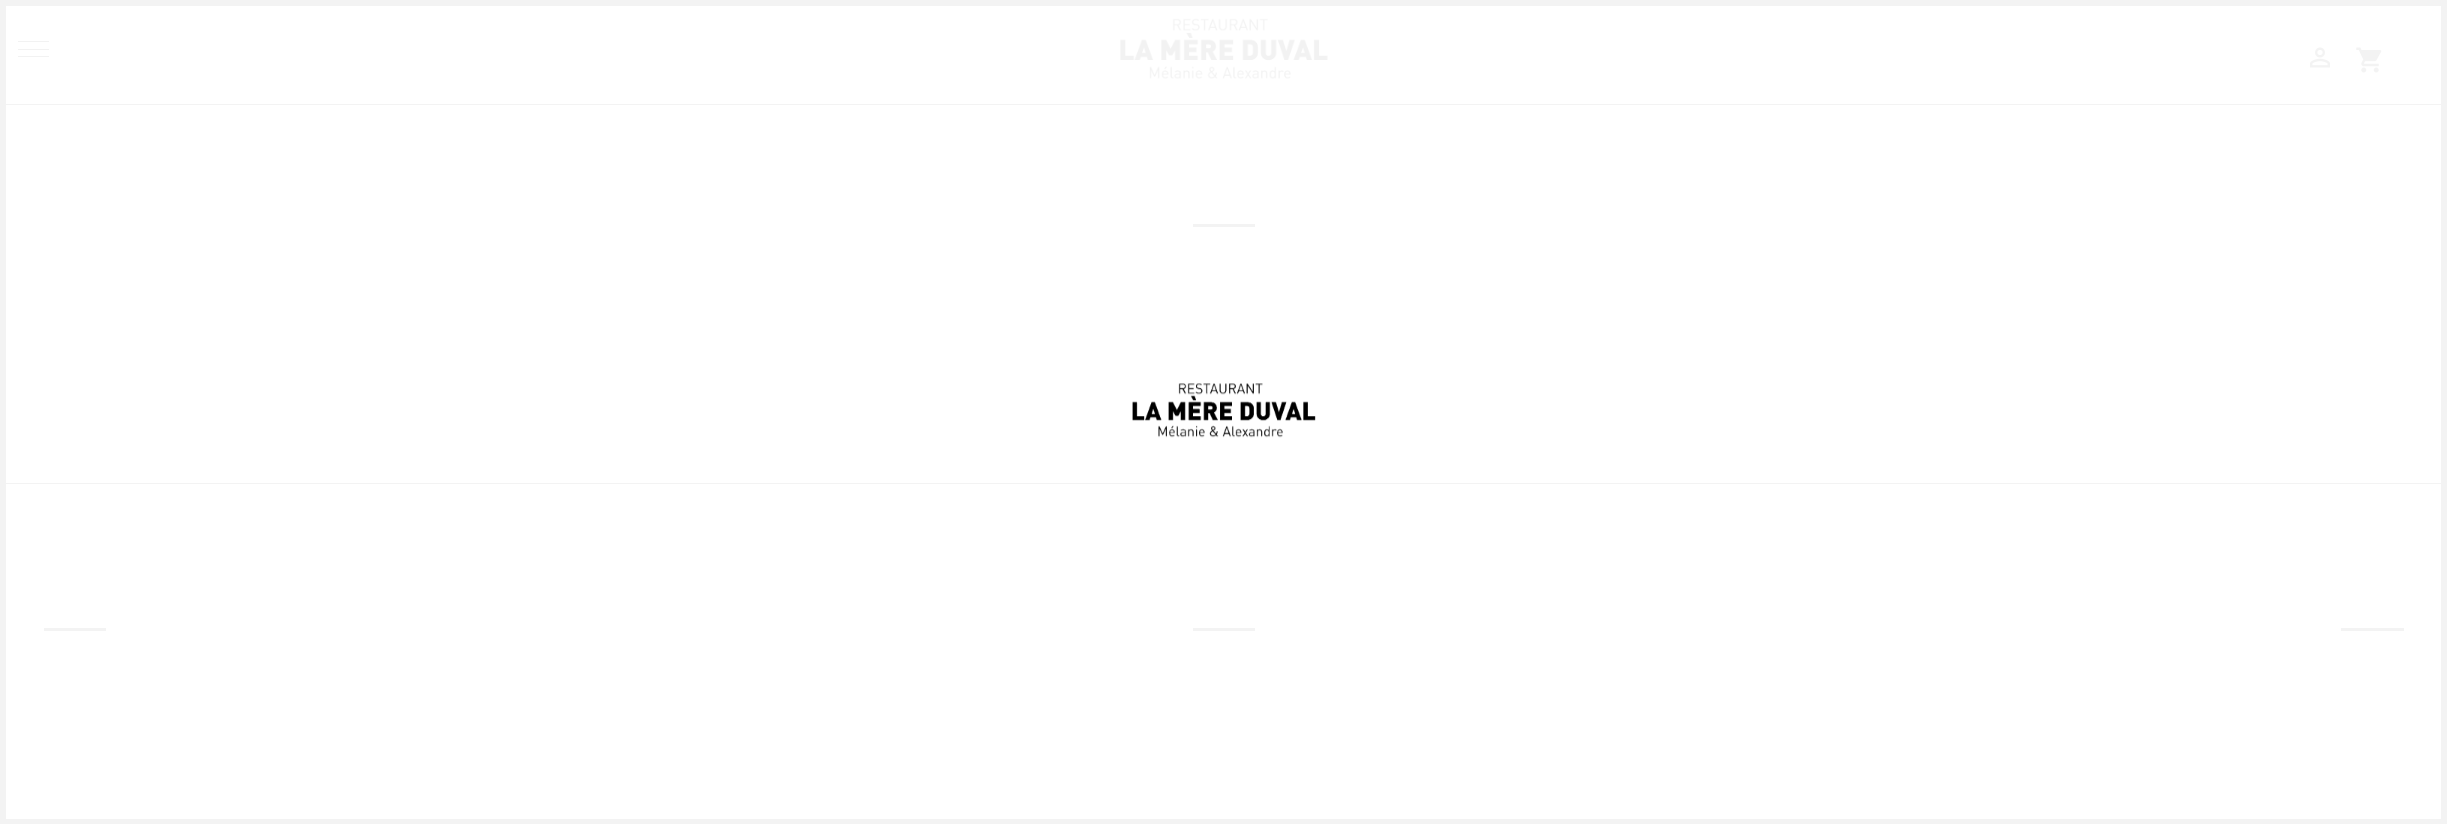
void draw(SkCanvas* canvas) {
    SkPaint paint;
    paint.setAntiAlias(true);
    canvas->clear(0xFFFFFFFF);
    paint.setColor(0xFFF3F3F3);
    canvas->drawRect(SkRect::MakeXYWH(0, 104, 2447, 1), paint);
    canvas->drawRect(SkRect::MakeXYWH(0, 483, 2447, 1), paint);
    canvas->drawRect(SkRect::MakeXYWH(0, 0, 6, 824), paint);
    canvas->drawRect(SkRect::MakeXYWH(2441, 0, 6, 824), paint);
    canvas->drawRect(SkRect::MakeXYWH(0, 0, 2447, 6), paint);
    paint.setColor(0xFFF2F2F2);
    canvas->drawRect(SkRect::MakeXYWH(18, 41, 31, 1), paint);
    canvas->drawRect(SkRect::MakeXYWH(18, 49, 31, 1), paint);
    canvas->drawRect(SkRect::MakeXYWH(18, 56, 31, 1), paint);
    canvas->drawImageRect(SkImages::DeferredFromEncodedData(SkData::MakeFromFileName("img1.png")), SkRect::MakeXYWH(1120, 18, 208, 61), SkSamplingOptions());
    canvas->drawImageRect(SkImages::DeferredFromEncodedData(SkData::MakeFromFileName("img2.png")), SkRect::MakeXYWH(2310, 47, 20, 21), SkSamplingOptions());
    canvas->drawImageRect(SkImages::DeferredFromEncodedData(SkData::MakeFromFileName("img3.png")), SkRect::MakeXYWH(2356, 47, 26, 26), SkSamplingOptions());
    paint.setColor(0xFFF3F3F3);
    canvas->drawRect(SkRect::MakeXYWH(0, 819, 2447, 5), paint);
    canvas->drawRect(SkRect::MakeXYWH(1193, 224, 62, 3), paint);
    canvas->drawImageRect(SkImages::DeferredFromEncodedData(SkData::MakeFromFileName("img4.png")), SkRect::MakeXYWH(1132, 383, 184, 55), SkSamplingOptions());
    canvas->drawRect(SkRect::MakeXYWH(44, 628, 62, 3), paint);
    canvas->drawRect(SkRect::MakeXYWH(1193, 628, 62, 3), paint);
    canvas->drawRect(SkRect::MakeXYWH(2341, 628, 63, 3), paint);
}
